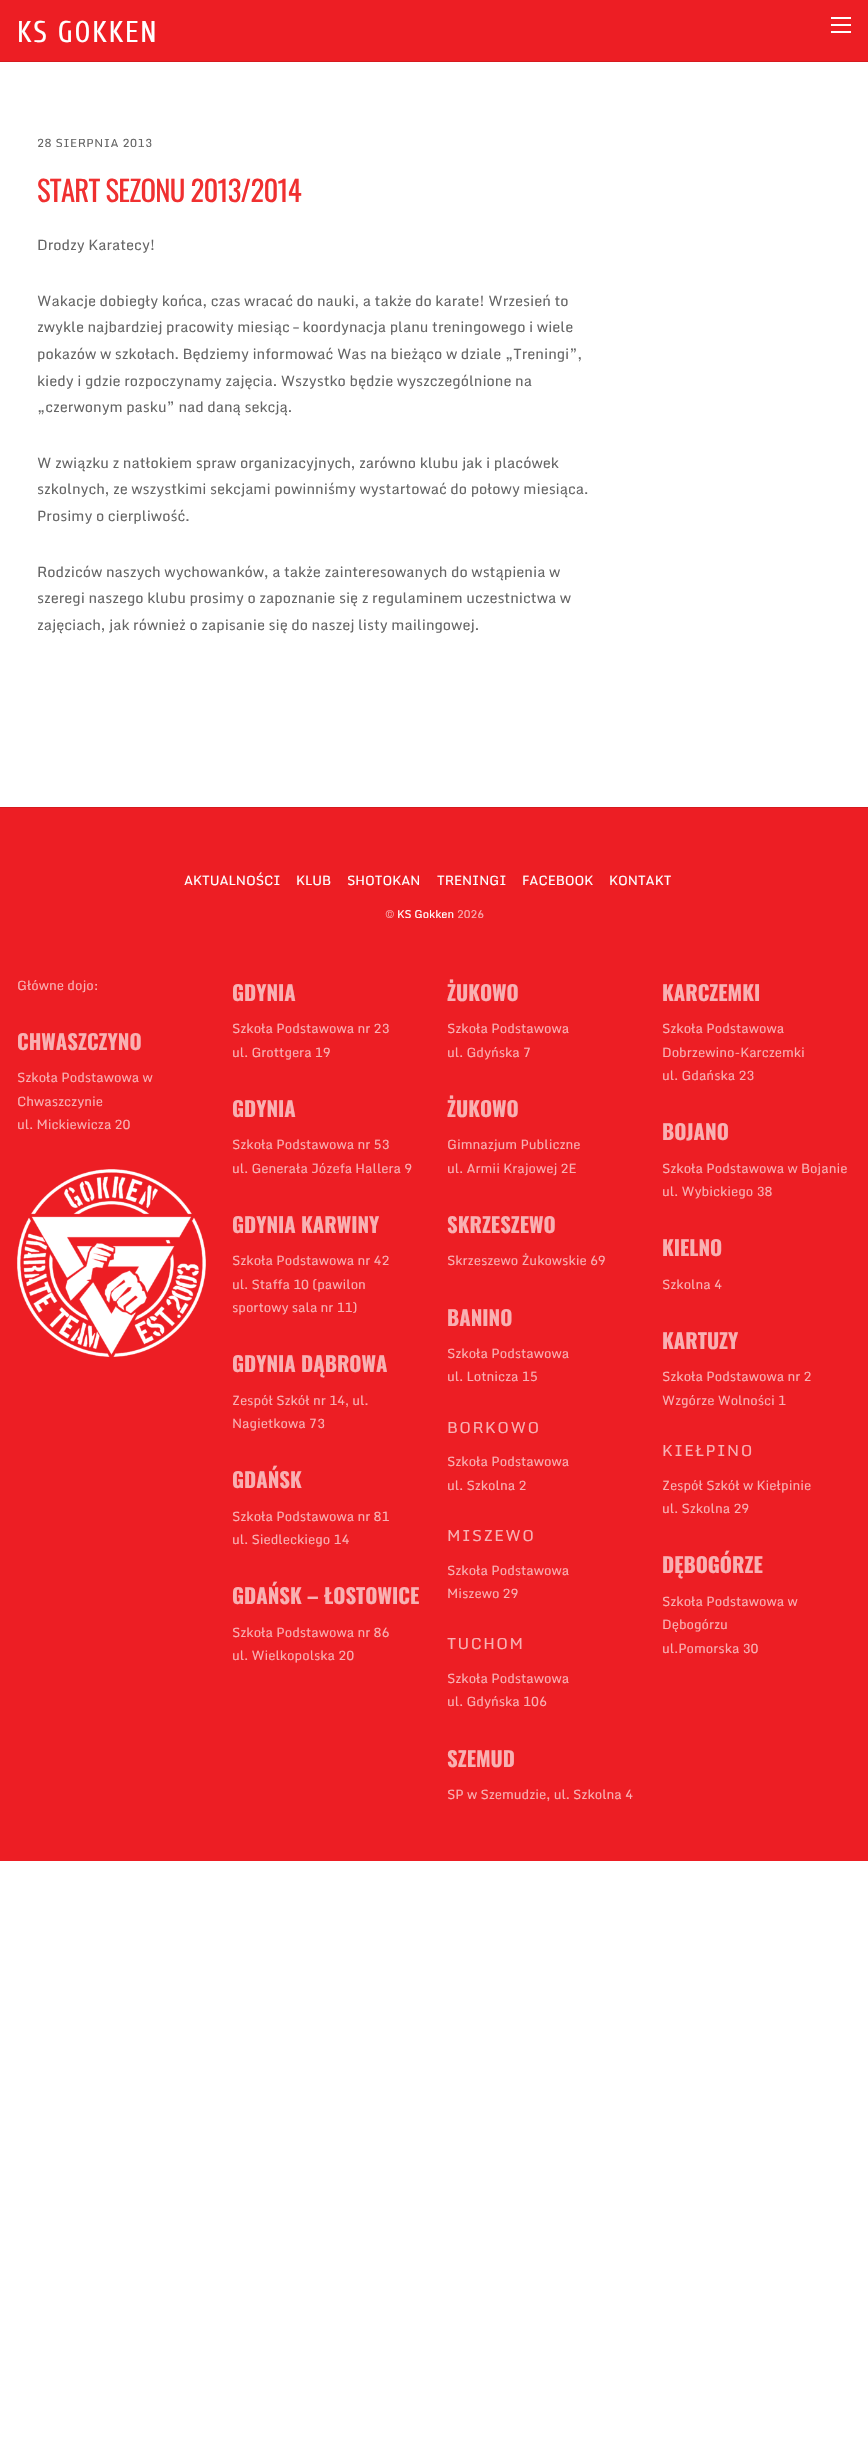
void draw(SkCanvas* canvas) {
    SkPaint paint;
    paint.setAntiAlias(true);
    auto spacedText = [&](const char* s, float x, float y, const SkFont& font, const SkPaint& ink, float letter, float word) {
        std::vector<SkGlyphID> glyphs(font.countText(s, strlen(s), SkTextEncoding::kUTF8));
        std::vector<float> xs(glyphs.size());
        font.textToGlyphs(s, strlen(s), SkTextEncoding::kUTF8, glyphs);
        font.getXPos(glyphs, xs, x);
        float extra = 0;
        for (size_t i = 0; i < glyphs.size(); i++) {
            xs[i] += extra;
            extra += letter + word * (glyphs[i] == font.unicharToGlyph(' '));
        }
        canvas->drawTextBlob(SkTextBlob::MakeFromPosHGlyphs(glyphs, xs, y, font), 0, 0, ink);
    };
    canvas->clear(0xFFFFFFFF);
    paint.setColor(0xFFED1E24);
    canvas->drawRect(SkRect::MakeXYWH(0, 0, 868, 61), paint);
    paint.setColor(0xFFD51B20);
    canvas->drawRect(SkRect::MakeXYWH(0, 61, 868, 1), paint);
    SkFont font1(fontMgr->matchFamilyStyle("Cuprum", SkFontStyle::Normal()), 30);
    font1.setSubpixel(true);
    paint.setColor(0xFFFFFFFF);
    spacedText("KS GOKKEN", 17, 42, font1, paint, 1.75f, 0);
    canvas->drawRect(SkRect::MakeXYWH(831, 31, 20, 2), paint);
    canvas->drawRect(SkRect::MakeXYWH(831, 17, 20, 2), paint);
    canvas->drawRect(SkRect::MakeXYWH(831, 24, 20, 2), paint);
    SkFont font2(fontMgr->matchFamilyStyle("Monda", SkFontStyle::Normal()), 11.5f);
    font2.setSubpixel(true);
    paint.setColor(0xFF666666);
    spacedText("28 SIERPNIA 2013", 37, 147, font2, paint, 0.5f, 0);
    SkFont font3(fontMgr->matchFamilyStyle("Oswald", SkFontStyle::Normal()), 28.75f);
    font3.setSubpixel(true);
    paint.setColor(0xFFF03030);
    spacedText("START SEZONU 2013/2014", 37, 202, font3, paint, -0.75f, 0);
    SkFont font4(fontMgr->matchFamilyStyle("Monda", SkFontStyle::Normal()), 14.4f);
    font4.setSubpixel(true);
    paint.setColor(0xFF666666);
    canvas->drawString("Drodzy Karatecy!", 37, 250, font4, paint);
    canvas->drawString("Wakacje dobiegły końca, czas wracać do nauki, a także do karate! Wrzesień to", 37, 306, font4, paint);
    canvas->drawString("zwykle najbardziej pracowity miesiąc – koordynacja planu treningowego i wiele", 37, 332, font4, paint);
    canvas->drawString("pokazów w szkołach. Będziemy informować Was na bieżąco w dziale „Treningi”,", 37, 359, font4, paint);
    canvas->drawString("kiedy i gdzie rozpoczynamy zajęcia. Wszystko będzie wyszczególnione na", 37, 386, font4, paint);
    canvas->drawString("„czerwonym pasku” nad daną sekcją.", 37, 412, font4, paint);
    canvas->drawString("W związku z natłokiem spraw organizacyjnych, zarówno klubu jak i placówek", 37, 468, font4, paint);
    canvas->drawString("szkolnych, ze wszystkimi sekcjami powinniśmy wystartować do połowy miesiąca.", 37, 494, font4, paint);
    canvas->drawString("Prosimy o cierpliwość.", 37, 521, font4, paint);
    canvas->drawString("Rodziców naszych wychowanków, a także zainteresowanych do wstąpienia w", 37, 577, font4, paint);
    canvas->drawString("szeregi naszego klubu prosimy o zapoznanie się z regulaminem uczestnictwa w", 37, 603, font4, paint);
    canvas->drawString("zajęciach, jak również o zapisanie się do naszej listy mailingowej.", 37, 630, font4, paint);
    paint.setColor(0xFFED1E24);
    canvas->drawRect(SkRect::MakeXYWH(0, 808, 868, 1053), paint);
    paint.setColor(0xFFD51B20);
    canvas->drawRect(SkRect::MakeXYWH(0, 807, 868, 1), paint);
    SkFont font5(fontMgr->matchFamilyStyle("Monda", SkFontStyle::Normal()), 13);
    font5.setSubpixel(true);
    paint.setColor(0xFFFFFFFF);
    canvas->drawString("AKTUALNOŚCI", 184, 885, font5, paint);
    canvas->drawString("KLUB", 296, 885, font5, paint);
    canvas->drawString("SHOTOKAN", 347, 885, font5, paint);
    canvas->drawString("TRENINGI", 437, 885, font5, paint);
    canvas->drawString("FACEBOOK", 522, 885, font5, paint);
    canvas->drawString("KONTAKT", 609, 885, font5, paint);
    SkFont font6(fontMgr->matchFamilyStyle("Monda", SkFontStyle::Normal()), 11);
    font6.setSubpixel(true);
    paint.setColor(0xFFF9B0B2);
    canvas->drawString("©", 385, 918, font6, paint);
    paint.setColor(0xFFFFFFFF);
    canvas->drawString("KS Gokken", 397, 918, font6, paint);
    paint.setColor(0xFFF9B0B2);
    canvas->drawString("2026", 457, 918, font6, paint);
    canvas->drawString("Główne dojo:", 17, 990, font5, paint);
    SkFont font7(fontMgr->matchFamilyStyle("Oswald", SkFontStyle::Bold()), 20.75f);
    font7.setSubpixel(true);
    canvas->drawString("CHWASZCZYNO", 17, 1050, font7, paint);
    canvas->drawString("Szkoła Podstawowa w", 17, 1082, font5, paint);
    canvas->drawString("Chwaszczynie", 17, 1106, font5, paint);
    canvas->drawString("ul. Mickiewicza 20", 17, 1129, font5, paint);
    canvas->drawImageRect(SkImages::DeferredFromEncodedData(SkData::MakeFromFileName("img1.png")), SkRect::MakeXYWH(17, 1169, 189, 188), SkSamplingOptions());
    canvas->drawString("GDYNIA", 232, 1001, font7, paint);
    canvas->drawString("Szkoła Podstawowa nr 23", 232, 1033, font5, paint);
    canvas->drawString("ul. Grottgera 19", 232, 1057, font5, paint);
    canvas->drawString("GDYNIA", 232, 1117, font7, paint);
    canvas->drawString("Szkoła Podstawowa nr 53", 232, 1149, font5, paint);
    canvas->drawString("ul. Generała Józefa Hallera 9", 232, 1173, font5, paint);
    canvas->drawString("GDYNIA KARWINY", 232, 1233, font7, paint);
    canvas->drawString("Szkoła Podstawowa nr 42", 232, 1265, font5, paint);
    canvas->drawString("ul. Staffa 10 (pawilon", 232, 1289, font5, paint);
    canvas->drawString("sportowy sala nr 11)", 232, 1312, font5, paint);
    canvas->drawString("GDYNIA DĄBROWA", 232, 1372, font7, paint);
    canvas->drawString("Zespół Szkół nr 14, ul.", 232, 1405, font5, paint);
    canvas->drawString("Nagietkowa 73", 232, 1428, font5, paint);
    canvas->drawString("GDAŃSK", 232, 1488, font7, paint);
    canvas->drawString("Szkoła Podstawowa nr 81", 232, 1521, font5, paint);
    canvas->drawString("ul. Siedleckiego 14", 232, 1544, font5, paint);
    canvas->drawString("GDAŃSK – ŁOSTOWICE", 232, 1604, font7, paint);
    canvas->drawString("Szkoła Podstawowa nr 86", 232, 1637, font5, paint);
    canvas->drawString("ul. Wielkopolska 20", 232, 1660, font5, paint);
    canvas->drawString("ŻUKOWO", 447, 1001, font7, paint);
    canvas->drawString("Szkoła Podstawowa", 447, 1033, font5, paint);
    canvas->drawString("ul. Gdyńska 7", 447, 1057, font5, paint);
    canvas->drawString("ŻUKOWO", 447, 1117, font7, paint);
    canvas->drawString("Gimnazjum Publiczne", 447, 1149, font5, paint);
    canvas->drawString("ul. Armii Krajowej 2E", 447, 1173, font5, paint);
    canvas->drawString("SKRZESZEWO", 447, 1233, font7, paint);
    canvas->drawString("Skrzeszewo Żukowskie 69", 447, 1265, font5, paint);
    canvas->drawString("BANINO", 447, 1326, font7, paint);
    canvas->drawString("Szkoła Podstawowa", 447, 1358, font5, paint);
    canvas->drawString("ul. Lotnicza 15", 447, 1381, font5, paint);
    SkFont font8(fontMgr->matchFamilyStyle("Monda", SkFontStyle::Normal()), 15.5f);
    font8.setSubpixel(true);
    spacedText("BORKOWO", 447, 1433, font8, paint, 1.5f, 0);
    canvas->drawString("Szkoła Podstawowa", 447, 1466, font5, paint);
    canvas->drawString("ul. Szkolna 2", 447, 1490, font5, paint);
    spacedText("MISZEWO", 447, 1541, font8, paint, 1.5f, 0);
    canvas->drawString("Szkoła Podstawowa", 447, 1575, font5, paint);
    canvas->drawString("Miszewo 29", 447, 1598, font5, paint);
    spacedText("TUCHOM", 447, 1649, font8, paint, 1.5f, 0);
    canvas->drawString("Szkoła Podstawowa", 447, 1683, font5, paint);
    canvas->drawString("ul. Gdyńska 106", 447, 1706, font5, paint);
    canvas->drawString("SZEMUD", 447, 1767, font7, paint);
    canvas->drawString("SP w Szemudzie, ul. Szkolna 4", 447, 1799, font5, paint);
    canvas->drawString("KARCZEMKI", 662, 1001, font7, paint);
    canvas->drawString("Szkoła Podstawowa", 662, 1033, font5, paint);
    canvas->drawString("Dobrzewino-Karczemki", 662, 1057, font5, paint);
    canvas->drawString("ul. Gdańska 23", 662, 1080, font5, paint);
    canvas->drawString("BOJANO", 662, 1140, font7, paint);
    canvas->drawString("Szkoła Podstawowa w Bojanie", 662, 1173, font5, paint);
    canvas->drawString("ul. Wybickiego 38", 662, 1196, font5, paint);
    canvas->drawString("KIELNO", 662, 1256, font7, paint);
    canvas->drawString("Szkolna 4", 662, 1289, font5, paint);
    canvas->drawString("KARTUZY", 662, 1349, font7, paint);
    canvas->drawString("Szkoła Podstawowa nr 2", 662, 1381, font5, paint);
    canvas->drawString("Wzgórze Wolności 1", 662, 1405, font5, paint);
    spacedText("KIEŁPINO", 662, 1456, font8, paint, 1.5f, 0);
    canvas->drawString("Zespół Szkół w Kiełpinie", 662, 1490, font5, paint);
    canvas->drawString("ul. Szkolna 29", 662, 1513, font5, paint);
    canvas->drawString("DĘBOGÓRZE", 662, 1573, font7, paint);
    canvas->drawString("Szkoła Podstawowa w", 662, 1606, font5, paint);
    canvas->drawString("Dębogórzu", 662, 1629, font5, paint);
    canvas->drawString("ul.Pomorska 30", 662, 1653, font5, paint);
}
